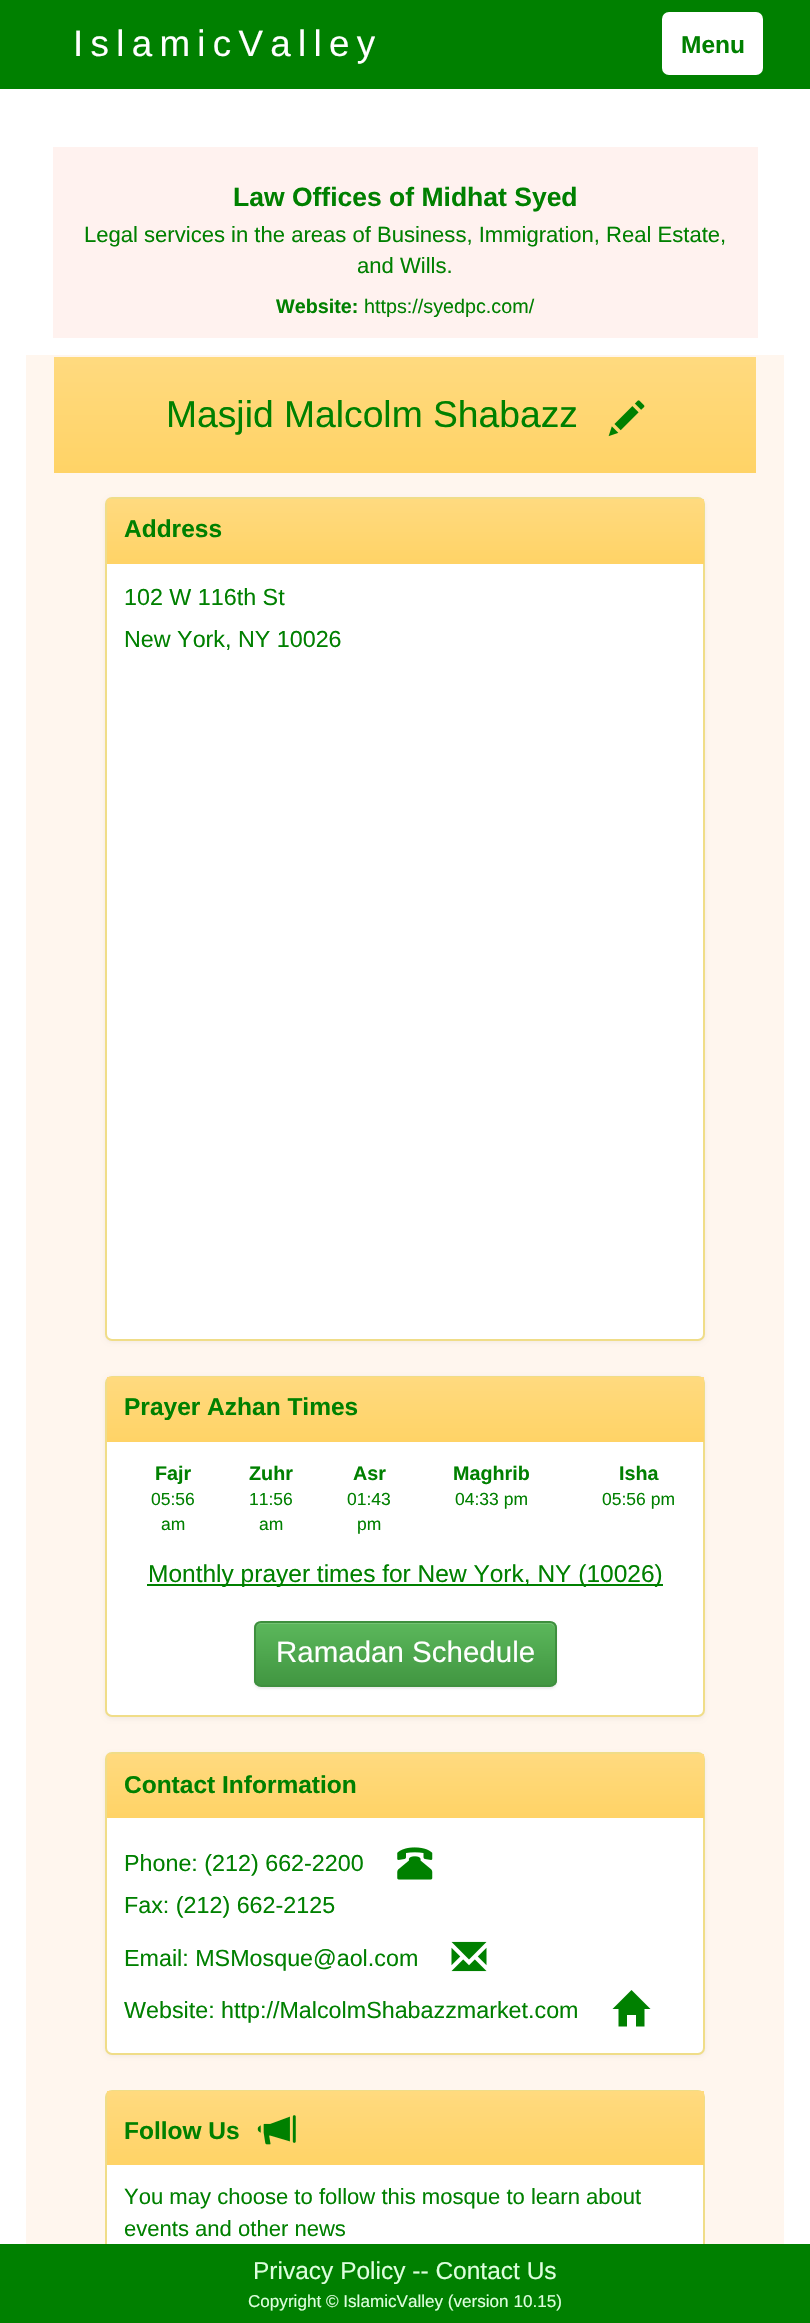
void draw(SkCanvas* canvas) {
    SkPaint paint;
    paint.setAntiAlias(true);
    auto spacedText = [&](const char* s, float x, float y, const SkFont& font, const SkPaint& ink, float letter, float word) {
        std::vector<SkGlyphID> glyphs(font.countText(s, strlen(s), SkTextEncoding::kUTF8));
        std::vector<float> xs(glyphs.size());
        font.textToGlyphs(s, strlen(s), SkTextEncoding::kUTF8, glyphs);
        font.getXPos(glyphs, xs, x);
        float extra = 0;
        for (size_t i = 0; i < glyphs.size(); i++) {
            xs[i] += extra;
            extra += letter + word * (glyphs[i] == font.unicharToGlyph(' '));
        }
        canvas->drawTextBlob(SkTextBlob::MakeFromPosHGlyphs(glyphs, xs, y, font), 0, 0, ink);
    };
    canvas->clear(0xFFFFFFFF);
    paint.setColor(0xFF008000);
    canvas->drawRect(SkRect::MakeXYWH(0, 0, 810, 89), paint);
    SkFont font1(fontMgr->matchFamilyStyle("Liberation Sans", SkFontStyle::Normal()), 36.75f);
    font1.setSubpixel(true);
    paint.setColor(0xFFFFFFFF);
    spacedText("IslamicValley", 73, 56, font1, paint, 7.3f, 0);
    canvas->drawRoundRect(SkRect::MakeXYWH(662, 12, 101, 63), 7, 7, paint);
    SkFont font2(fontMgr->matchFamilyStyle("Liberation Sans", SkFontStyle::Bold()), 24.5f);
    font2.setSubpixel(true);
    paint.setColor(0xFF008000);
    canvas->drawString("Menu", 681, 53, font2, paint);
    paint.setColor(0xFFFFF2EF);
    canvas->drawRect(SkRect::MakeXYWH(53, 147, 705, 191), paint);
    SkFont font3(fontMgr->matchFamilyStyle("Liberation Sans", SkFontStyle::Bold()), 26.5f);
    font3.setSubpixel(true);
    paint.setColor(0xFF008000);
    canvas->drawString("Law Offices of Midhat Syed", 233, 206, font3, paint);
    SkFont font4(fontMgr->matchFamilyStyle("Liberation Sans", SkFontStyle::Normal()), 22.05f);
    font4.setSubpixel(true);
    canvas->drawString("Legal services in the areas of Business, Immigration, Real Estate,", 84, 242, font4, paint);
    canvas->drawString("and Wills.", 357, 273, font4, paint);
    SkFont font5(fontMgr->matchFamilyStyle("Liberation Sans", SkFontStyle::Bold()), 19.75f);
    font5.setSubpixel(true);
    canvas->drawString("Website:", 276, 313, font5, paint);
    SkFont font6(fontMgr->matchFamilyStyle("Liberation Sans", SkFontStyle::Normal()), 19.75f);
    font6.setSubpixel(true);
    canvas->drawString("https://syedpc.com/", 364, 313, font6, paint);
    paint.setColor(0xFFFFF6EE);
    canvas->drawRect(SkRect::MakeXYWH(26, 355, 758, 1889), paint);
    {
        const SkColor colors[] = {0xFFFFDA7F, 0xFFFFD366};
        const float stops[] = {0, 1};
        const SkPoint ends[] = {{405, 357}, {405, 473}};
        paint.setShader(SkGradientShader::MakeLinear(ends, colors, stops, 2, SkTileMode::kClamp));
        paint.setAlpha(255);
    }
    canvas->drawRect(SkRect::MakeXYWH(54, 357, 702, 116), paint);
    SkFont font7(fontMgr->matchFamilyStyle("Liberation Sans", SkFontStyle::Normal()), 37.25f);
    font7.setSubpixel(true);
    paint.setShader(nullptr);
    paint.setColor(0xFF008000);
    canvas->drawString("Masjid Malcolm Shabazz", 166, 427, font7, paint);
    canvas->drawImageRect(SkImages::DeferredFromEncodedData(SkData::MakeFromFileName("img1.png")), SkRect::MakeXYWH(608, 400, 37, 37), SkSamplingOptions());
    paint.setColor(0x0D000000);
    paint.setMaskFilter(SkMaskFilter::MakeBlur(kNormal_SkBlurStyle, 2));
    canvas->drawRoundRect(SkRect::MakeXYWH(105, 499, 600, 843), 7, 7, paint);
    paint.setMaskFilter(nullptr);
    paint.setColor(0xFFFFFFFF);
    canvas->drawRoundRect(SkRect::MakeXYWH(106, 498, 598, 842), 6, 6, paint);
    paint.setStyle(SkPaint::kStroke_Style);
    paint.setStrokeWidth(2);
    paint.setColor(0xFFF0DD88);
    canvas->drawRoundRect(SkRect::MakeXYWH(106, 498, 598, 842), 6, 6, paint);
    paint.setStyle(SkPaint::kFill_Style);
    {
        const SkColor colors[] = {0xFFFFDA7F, 0xFFFFD366};
        const float stops[] = {0, 1};
        const SkPoint ends[] = {{405, 499}, {405, 564}};
        paint.setShader(SkGradientShader::MakeLinear(ends, colors, stops, 2, SkTileMode::kClamp));
        paint.setAlpha(255);
    }
    canvas->drawRect(SkRect::MakeXYWH(107, 499, 597, 65), paint);
    paint.setShader(nullptr);
    paint.setColor(0xFF008000);
    canvas->drawString("Address", 124, 537, font2, paint);
    SkFont font8(fontMgr->matchFamilyStyle("Liberation Sans", SkFontStyle::Normal()), 23.3f);
    font8.setSubpixel(true);
    canvas->drawString("102 W 116th St", 124, 605, font8, paint);
    canvas->drawString("New York, NY 10026", 124, 647, font8, paint);
    paint.setColor(0x0D000000);
    paint.setMaskFilter(SkMaskFilter::MakeBlur(kNormal_SkBlurStyle, 2));
    canvas->drawRoundRect(SkRect::MakeXYWH(105, 1377, 600, 342), 7, 7, paint);
    paint.setMaskFilter(nullptr);
    paint.setColor(0xFFFFFFFF);
    canvas->drawRoundRect(SkRect::MakeXYWH(106, 1377, 598, 339), 6, 6, paint);
    paint.setStyle(SkPaint::kStroke_Style);
    paint.setColor(0xFFF0DD88);
    canvas->drawRoundRect(SkRect::MakeXYWH(106, 1377, 598, 339), 6, 6, paint);
    paint.setStyle(SkPaint::kFill_Style);
    {
        const SkColor colors[] = {0xFFFFDA7F, 0xFFFFD366};
        const float stops[] = {0, 1};
        const SkPoint ends[] = {{405, 1377}, {405, 1442}};
        paint.setShader(SkGradientShader::MakeLinear(ends, colors, stops, 2, SkTileMode::kClamp));
        paint.setAlpha(255);
    }
    canvas->drawRect(SkRect::MakeXYWH(107, 1377, 597, 65), paint);
    paint.setShader(nullptr);
    paint.setColor(0xFF008000);
    canvas->drawString("Prayer Azhan Times", 124, 1415, font2, paint);
    canvas->drawString("Fajr", 155, 1480, font5, paint);
    canvas->drawString("Zuhr", 249, 1480, font5, paint);
    canvas->drawString("Asr", 353, 1480, font5, paint);
    canvas->drawString("Maghrib", 453, 1480, font5, paint);
    canvas->drawString("Isha", 619, 1480, font5, paint);
    SkFont font9(fontMgr->matchFamilyStyle("Liberation Sans", SkFontStyle::Normal()), 17.5f);
    font9.setSubpixel(true);
    canvas->drawString("05:56", 151, 1505, font9, paint);
    canvas->drawString("am", 161, 1530, font9, paint);
    canvas->drawString("11:56", 249, 1505, font9, paint);
    canvas->drawString("am", 259, 1530, font9, paint);
    canvas->drawString("01:43", 347, 1505, font9, paint);
    canvas->drawString("pm", 357, 1530, font9, paint);
    canvas->drawString("04:33 pm", 455, 1505, font9, paint);
    canvas->drawString("05:56 pm", 602, 1505, font9, paint);
    canvas->drawRect(SkRect::MakeXYWH(147, 1584, 516, 2), paint);
    SkFont font10(fontMgr->matchFamilyStyle("Liberation Sans", SkFontStyle::Normal()), 24.5f);
    font10.setSubpixel(true);
    canvas->drawString("Monthly prayer times for New York, NY (10026)", 148, 1582, font10, paint);
    paint.setColor(0x12000000);
    paint.setMaskFilter(SkMaskFilter::MakeBlur(kNormal_SkBlurStyle, 1));
    canvas->drawRoundRect(SkRect::MakeXYWH(254, 1622, 303, 67), 7, 7, paint);
    paint.setMaskFilter(nullptr);
    canvas->save();
    canvas->clipPath(SkPathBuilder().moveTo(261, 1621).lineTo(550, 1621).cubicTo(554, 1621, 557, 1624, 557, 1628).lineTo(557, 1680).cubicTo(557, 1684, 554, 1687, 550, 1687).lineTo(261, 1687).cubicTo(257, 1687, 254, 1684, 254, 1680).lineTo(254, 1628).cubicTo(254, 1624, 257, 1621, 261, 1621).close().detach(), true);
    {
        const SkColor colors[] = {0xFF5CB85C, 0xFF419641};
        const float stops[] = {0, 1};
        const SkPoint ends[] = {{405, 1622}, {405, 1685}};
        paint.setShader(SkGradientShader::MakeLinear(ends, colors, stops, 2, SkTileMode::kClamp));
        paint.setAlpha(255);
    }
    canvas->drawRect(SkRect::MakeXYWH(254, 1622, 303, 63), paint);
    canvas->restore();
    paint.setShader(nullptr);
    paint.setColor(0xFF74C274);
    canvas->drawPath(SkPathBuilder().moveTo(261, 1624).lineTo(551, 1624).lineTo(554, 1626).lineTo(555, 1629).cubicTo(555, 1626, 554, 1622, 550, 1622).lineTo(261, 1622).cubicTo(257, 1622, 256, 1626, 256, 1629).cubicTo(256, 1626, 258, 1624, 261, 1624).close().detach(), paint);
    paint.setStyle(SkPaint::kStroke_Style);
    paint.setColor(0xFF3E8F3E);
    canvas->drawRoundRect(SkRect::MakeXYWH(255, 1622, 301, 64), 6, 6, paint);
    SkFont font11(fontMgr->matchFamilyStyle("Liberation Sans", SkFontStyle::Normal()), 29.5f);
    font11.setSubpixel(true);
    paint.setStyle(SkPaint::kFill_Style);
    paint.setColor(0xFFFFFFFF);
    canvas->drawString("Ramadan Schedule", 276, 1662, font11, paint);
    paint.setColor(0x0D000000);
    paint.setMaskFilter(SkMaskFilter::MakeBlur(kNormal_SkBlurStyle, 2));
    canvas->drawRoundRect(SkRect::MakeXYWH(105, 1754, 600, 302), 7, 7, paint);
    paint.setMaskFilter(nullptr);
    paint.setColor(0xFFFFFFFF);
    canvas->drawRoundRect(SkRect::MakeXYWH(106, 1753, 598, 301), 6, 6, paint);
    paint.setStyle(SkPaint::kStroke_Style);
    paint.setColor(0xFFF0DD88);
    canvas->drawRoundRect(SkRect::MakeXYWH(106, 1753, 598, 301), 6, 6, paint);
    paint.setStyle(SkPaint::kFill_Style);
    {
        const SkColor colors[] = {0xFFFFDA7F, 0xFFFFD366};
        const float stops[] = {0, 1};
        const SkPoint ends[] = {{405, 1754}, {405, 1818}};
        paint.setShader(SkGradientShader::MakeLinear(ends, colors, stops, 2, SkTileMode::kClamp));
        paint.setAlpha(255);
    }
    canvas->drawRect(SkRect::MakeXYWH(107, 1754, 597, 64), paint);
    paint.setShader(nullptr);
    paint.setColor(0xFF008000);
    canvas->drawString("Contact Information", 124, 1793, font2, paint);
    canvas->drawString("Phone: (212) 662-2200", 124, 1871, font8, paint);
    canvas->drawImageRect(SkImages::DeferredFromEncodedData(SkData::MakeFromFileName("img2.png")), SkRect::MakeXYWH(397, 1847, 36, 33), SkSamplingOptions());
    canvas->drawString("Fax: (212) 662-2125", 124, 1913, font8, paint);
    canvas->drawString("Email: MSMosque@aol.com", 124, 1966, font8, paint);
    canvas->drawImageRect(SkImages::DeferredFromEncodedData(SkData::MakeFromFileName("img3.png")), SkRect::MakeXYWH(451, 1941, 36, 31), SkSamplingOptions());
    canvas->drawString("Website: http://MalcolmShabazzmarket.com", 124, 2018, font8, paint);
    canvas->drawPath(SkPathBuilder().moveTo(612.5f, 2009).lineTo(631.5f, 1990).lineTo(650.5f, 2009).lineTo(644.5f, 2009).lineTo(644.5f, 2026.5f).lineTo(636, 2026.5f).lineTo(636, 2015).lineTo(627, 2015).lineTo(627, 2026.5f).lineTo(618.5f, 2026.5f).lineTo(618.5f, 2009).close().detach(), paint);
    paint.setColor(0xFFFFFFFF);
    canvas->drawRoundRect(SkRect::MakeXYWH(106, 2091, 598, 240), 6, 6, paint);
    paint.setStyle(SkPaint::kStroke_Style);
    paint.setColor(0xFFF0DD88);
    canvas->drawRoundRect(SkRect::MakeXYWH(106, 2091, 598, 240), 6, 6, paint);
    paint.setStyle(SkPaint::kFill_Style);
    {
        const SkColor colors[] = {0xFFFFDA7F, 0xFFFFD366};
        const float stops[] = {0, 1};
        const SkPoint ends[] = {{405, 2091}, {405, 2165}};
        paint.setShader(SkGradientShader::MakeLinear(ends, colors, stops, 2, SkTileMode::kClamp));
        paint.setAlpha(255);
    }
    canvas->drawRect(SkRect::MakeXYWH(107, 2091, 597, 74), paint);
    paint.setShader(nullptr);
    paint.setColor(0xFF008000);
    canvas->drawString("Follow Us", 124, 2139, font2, paint);
    canvas->drawImageRect(SkImages::DeferredFromEncodedData(SkData::MakeFromFileName("img4.png")), SkRect::MakeXYWH(257, 2115, 39, 30), SkSamplingOptions());
    canvas->drawString("You may choose to follow this mosque to learn about", 124, 2204, font4, paint);
    canvas->drawString("events and other news", 124, 2236, font4, paint);
    canvas->drawRect(SkRect::MakeXYWH(0, 2244, 810, 79), paint);
    paint.setColor(0xFFDDFFDD);
    canvas->drawString("Privacy Policy -- Contact Us", 253, 2279, font10, paint);
    SkFont font12(fontMgr->matchFamilyStyle("Liberation Sans", SkFontStyle::Normal()), 17.1f);
    font12.setSubpixel(true);
    canvas->drawString("Copyright © IslamicValley (version 10.15)", 248, 2307, font12, paint);
}
